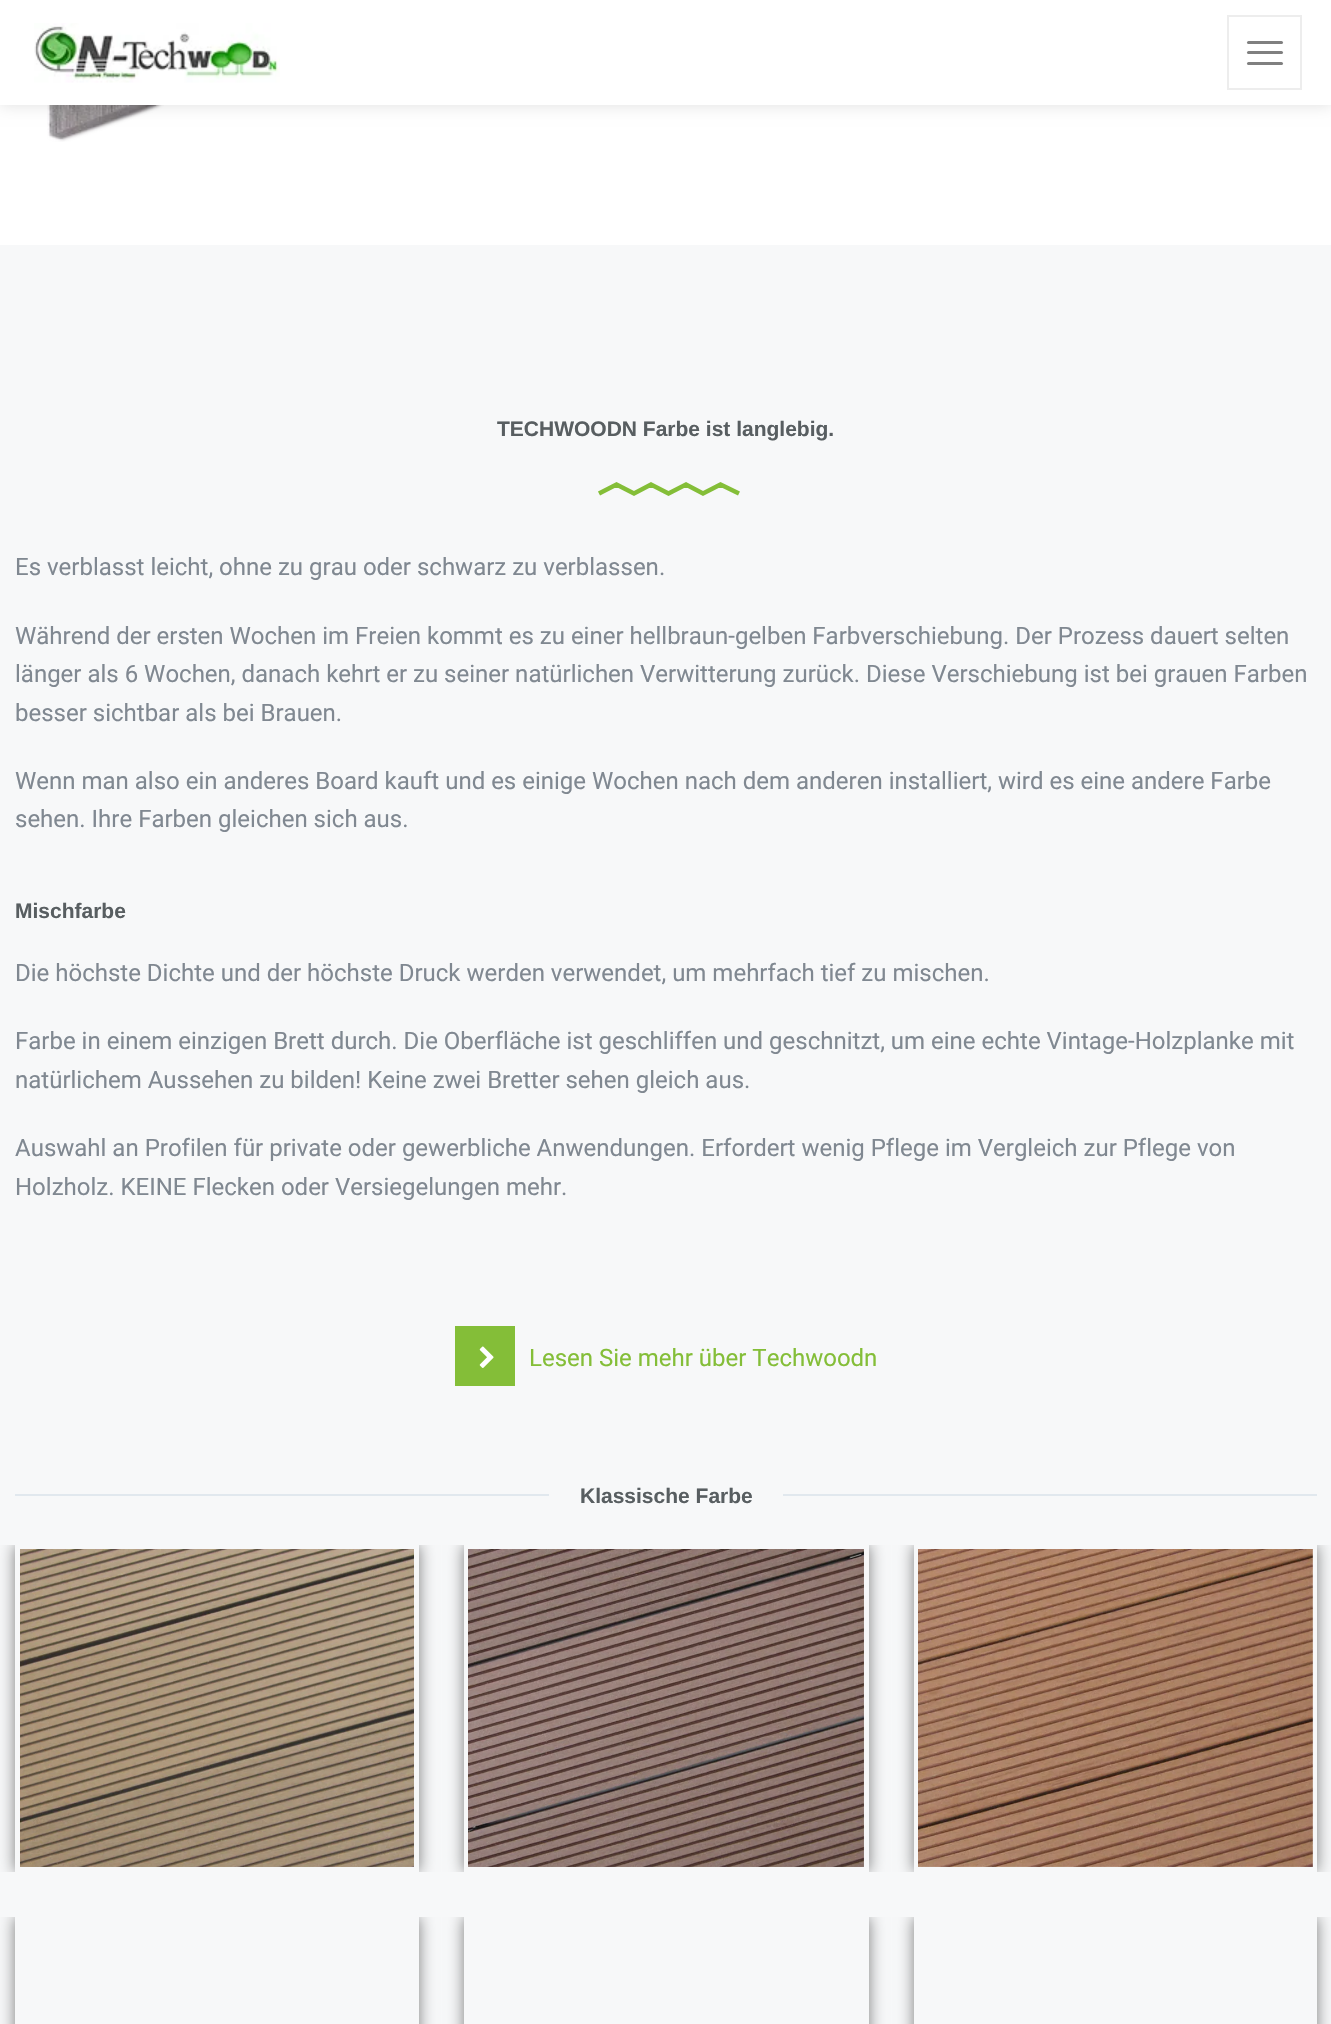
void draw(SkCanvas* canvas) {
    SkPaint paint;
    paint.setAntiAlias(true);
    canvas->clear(0xFFFFFFFF);
    canvas->drawImageRect(SkImages::DeferredFromEncodedData(SkData::MakeFromFileName("img2.png")), SkRect::MakeXYWH(47, 105, 117, 37), SkSamplingOptions());
    paint.setColor(0x1F000000);
    paint.setMaskFilter(SkMaskFilter::MakeBlur(kNormal_SkBlurStyle, 7.5f));
    canvas->drawRect(SkRect::MakeXYWH(0, 0, 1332, 105), paint);
    paint.setMaskFilter(nullptr);
    paint.setColor(0xFFFFFFFF);
    canvas->drawRect(SkRect::MakeXYWH(0, 0, 1331, 105), paint);
    canvas->drawImageRect(SkImages::DeferredFromEncodedData(SkData::MakeFromFileName("img1.png")), SkRect::MakeXYWH(34, 23, 246, 60), SkSamplingOptions());
    paint.setStyle(SkPaint::kStroke_Style);
    paint.setStrokeWidth(2);
    paint.setColor(0xFFEDEDED);
    canvas->drawRect(SkRect::MakeXYWH(1228, 16, 73, 73), paint);
    paint.setStyle(SkPaint::kFill_Style);
    paint.setColor(0xFF808080);
    canvas->drawRoundRect(SkRect::MakeXYWH(1247, 41, 36, 3), 1.5f, 1.5f, paint);
    canvas->drawRoundRect(SkRect::MakeXYWH(1247, 51, 36, 3), 1.5f, 1.5f, paint);
    canvas->drawRoundRect(SkRect::MakeXYWH(1247, 62, 36, 3), 1.5f, 1.5f, paint);
    paint.setColor(0xFFF7F8F9);
    canvas->drawRect(SkRect::MakeXYWH(0, 245, 1331, 1779), paint);
    SkFont font1(fontMgr->matchFamilyStyle("Liberation Sans", SkFontStyle::Bold()), 21);
    font1.setSubpixel(true);
    paint.setColor(0xFF585E61);
    canvas->drawString("TECHWOODN Farbe ist langlebig.", 497, 436, font1, paint);
    paint.setStyle(SkPaint::kStroke_Style);
    paint.setStrokeWidth(4.5f);
    paint.setColor(0xFF84BE38);
    canvas->drawPath(SkPathBuilder().moveTo(599, 493.5f).lineTo(616.5f, 484.5f).lineTo(634, 493.5f).lineTo(651, 484.5f).lineTo(668.5f, 493.5f).lineTo(686, 484.5f).lineTo(703, 493.5f).lineTo(720.5f, 484.5f).lineTo(739, 493.5f).detach(), paint);
    SkFont font2(fontMgr->matchFamilyStyle("Roboto", SkFontStyle::Normal()), 24);
    font2.setSubpixel(true);
    paint.setStyle(SkPaint::kFill_Style);
    paint.setColor(0xFF808891);
    canvas->drawString("Es verblasst leicht, ohne zu grau oder schwarz zu verblassen.", 15, 575, font2, paint);
    canvas->drawString("Während der ersten Wochen im Freien kommt es zu einer hellbraun-gelben Farbverschiebung. Der Prozess dauert selten", 15, 644, font2, paint);
    canvas->drawString("länger als 6 Wochen, danach kehrt er zu seiner natürlichen Verwitterung zurück. Diese Verschiebung ist bei grauen Farben", 15, 682, font2, paint);
    canvas->drawString("besser sichtbar als bei Brauen.", 15, 721, font2, paint);
    canvas->drawString("Wenn man also ein anderes Board kauft und es einige Wochen nach dem anderen installiert, wird es eine andere Farbe", 15, 789, font2, paint);
    canvas->drawString("sehen. Ihre Farben gleichen sich aus.", 15, 827, font2, paint);
    paint.setColor(0xFF585E61);
    canvas->drawString("Mischfarbe", 15, 918, font1, paint);
    paint.setColor(0xFF808891);
    canvas->drawString("Die höchste Dichte und der höchste Druck werden verwendet, um mehrfach tief zu mischen.", 15, 981, font2, paint);
    canvas->drawString("Farbe in einem einzigen Brett durch. Die Oberfläche ist geschliffen und geschnitzt, um eine echte Vintage-Holzplanke mit", 15, 1049, font2, paint);
    canvas->drawString("natürlichem Aussehen zu bilden! Keine zwei Bretter sehen gleich aus.", 15, 1088, font2, paint);
    canvas->drawString("Auswahl an Profilen für private oder gewerbliche Anwendungen. Erfordert wenig Pflege im Vergleich zur Pflege von", 15, 1156, font2, paint);
    canvas->drawString("Holzholz. KEINE Flecken oder Versiegelungen mehr.", 15, 1195, font2, paint);
    paint.setColor(0xFF84BE38);
    canvas->drawRect(SkRect::MakeXYWH(455, 1326, 60, 60), paint);
    canvas->drawImageRect(SkImages::DeferredFromEncodedData(SkData::MakeFromFileName("img3.png")), SkRect::MakeXYWH(479, 1346, 15, 22), SkSamplingOptions());
    canvas->drawString("Lesen Sie mehr über Techwoodn", 529, 1366, font2, paint);
    paint.setColor(0xFFE1E8EE);
    canvas->drawRect(SkRect::MakeXYWH(15, 1494, 534, 2), paint);
    paint.setColor(0xFF585E61);
    canvas->drawString("Klassische Farbe", 580, 1503, font1, paint);
    paint.setColor(0xFFE1E8EE);
    canvas->drawRect(SkRect::MakeXYWH(783, 1494, 534, 2), paint);
    canvas->save();
    canvas->clipRect(SkRect::MakeXYWH(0, 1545, 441, 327));
    paint.setColor(0x80000000);
    paint.setMaskFilter(SkMaskFilter::MakeBlur(kNormal_SkBlurStyle, 7.5f));
    canvas->drawRect(SkRect::MakeXYWH(15, 1545, 404, 327), paint);
    paint.setMaskFilter(nullptr);
    canvas->restore();
    paint.setStyle(SkPaint::kStroke_Style);
    paint.setStrokeWidth(5);
    paint.setColor(0xFFF7F8F9);
    canvas->drawRect(SkRect::MakeXYWH(17.5f, 1547.5f, 399, 322), paint);
    canvas->drawImageRect(SkImages::DeferredFromEncodedData(SkData::MakeFromFileName("img4.png")), SkRect::MakeXYWH(20, 1549, 394, 318), SkSamplingOptions());
    canvas->save();
    canvas->clipRect(SkRect::MakeXYWH(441, 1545, 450, 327));
    paint.setStyle(SkPaint::kFill_Style);
    paint.setColor(0x80000000);
    paint.setMaskFilter(SkMaskFilter::MakeBlur(kNormal_SkBlurStyle, 7.5f));
    canvas->drawRect(SkRect::MakeXYWH(464, 1545, 405, 327), paint);
    paint.setMaskFilter(nullptr);
    canvas->restore();
    paint.setStyle(SkPaint::kStroke_Style);
    paint.setColor(0xFFF7F8F9);
    canvas->drawRect(SkRect::MakeXYWH(466.5f, 1547.5f, 400, 322), paint);
    canvas->drawImageRect(SkImages::DeferredFromEncodedData(SkData::MakeFromFileName("img5.png")), SkRect::MakeXYWH(468, 1549, 396, 318), SkSamplingOptions());
    canvas->save();
    canvas->clipRect(SkRect::MakeXYWH(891, 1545, 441, 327));
    canvas->clipPath(SkPathBuilder(SkPathFillType::kEvenOdd).moveTo(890, 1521).lineTo(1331, 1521).lineTo(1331, 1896).lineTo(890, 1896).close().moveTo(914, 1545).lineTo(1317, 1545).lineTo(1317, 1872).lineTo(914, 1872).close().detach(), true);
    paint.setStyle(SkPaint::kFill_Style);
    paint.setColor(0x80000000);
    paint.setMaskFilter(SkMaskFilter::MakeBlur(kNormal_SkBlurStyle, 7.5f));
    canvas->drawRect(SkRect::MakeXYWH(914, 1545, 403, 327), paint);
    paint.setMaskFilter(nullptr);
    canvas->restore();
    canvas->drawImageRect(SkImages::DeferredFromEncodedData(SkData::MakeFromFileName("img6.png")), SkRect::MakeXYWH(918, 1549, 395, 318), SkSamplingOptions());
    canvas->save();
    canvas->clipRect(SkRect::MakeXYWH(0, 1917, 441, 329));
    canvas->clipPath(SkPathBuilder(SkPathFillType::kEvenOdd).moveTo(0, 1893).lineTo(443, 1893).lineTo(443, 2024).lineTo(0, 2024).close().moveTo(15, 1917).lineTo(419, 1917).lineTo(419, 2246).lineTo(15, 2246).close().detach(), true);
    paint.setMaskFilter(SkMaskFilter::MakeBlur(kNormal_SkBlurStyle, 7.5f));
    canvas->drawRect(SkRect::MakeXYWH(15, 1917, 404, 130), paint);
    paint.setMaskFilter(nullptr);
    canvas->restore();
    paint.setStyle(SkPaint::kStroke_Style);
    paint.setColor(0xFFF7F8F9);
    canvas->drawRect(SkRect::MakeXYWH(17.5f, 1919.5f, 399, 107), paint);
    canvas->save();
    canvas->clipRect(SkRect::MakeXYWH(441, 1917, 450, 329));
    canvas->clipPath(SkPathBuilder(SkPathFillType::kEvenOdd).moveTo(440, 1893).lineTo(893, 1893).lineTo(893, 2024).lineTo(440, 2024).close().moveTo(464, 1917).lineTo(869, 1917).lineTo(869, 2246).lineTo(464, 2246).close().detach(), true);
    paint.setStyle(SkPaint::kFill_Style);
    paint.setColor(0x80000000);
    paint.setMaskFilter(SkMaskFilter::MakeBlur(kNormal_SkBlurStyle, 7.5f));
    canvas->drawRect(SkRect::MakeXYWH(464, 1917, 405, 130), paint);
    paint.setMaskFilter(nullptr);
    canvas->restore();
    paint.setStyle(SkPaint::kStroke_Style);
    paint.setColor(0xFFF7F8F9);
    canvas->drawRect(SkRect::MakeXYWH(466.5f, 1919.5f, 400, 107), paint);
    canvas->save();
    canvas->clipRect(SkRect::MakeXYWH(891, 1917, 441, 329));
    canvas->clipPath(SkPathBuilder(SkPathFillType::kEvenOdd).moveTo(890, 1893).lineTo(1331, 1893).lineTo(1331, 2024).lineTo(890, 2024).close().moveTo(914, 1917).lineTo(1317, 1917).lineTo(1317, 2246).lineTo(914, 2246).close().detach(), true);
    paint.setStyle(SkPaint::kFill_Style);
    paint.setColor(0x80000000);
    paint.setMaskFilter(SkMaskFilter::MakeBlur(kNormal_SkBlurStyle, 7.5f));
    canvas->drawRect(SkRect::MakeXYWH(914, 1917, 403, 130), paint);
    paint.setMaskFilter(nullptr);
    canvas->restore();
}
